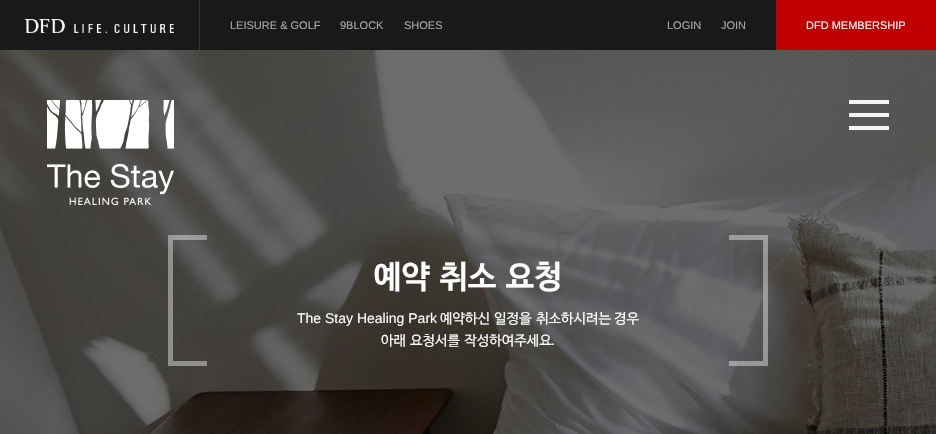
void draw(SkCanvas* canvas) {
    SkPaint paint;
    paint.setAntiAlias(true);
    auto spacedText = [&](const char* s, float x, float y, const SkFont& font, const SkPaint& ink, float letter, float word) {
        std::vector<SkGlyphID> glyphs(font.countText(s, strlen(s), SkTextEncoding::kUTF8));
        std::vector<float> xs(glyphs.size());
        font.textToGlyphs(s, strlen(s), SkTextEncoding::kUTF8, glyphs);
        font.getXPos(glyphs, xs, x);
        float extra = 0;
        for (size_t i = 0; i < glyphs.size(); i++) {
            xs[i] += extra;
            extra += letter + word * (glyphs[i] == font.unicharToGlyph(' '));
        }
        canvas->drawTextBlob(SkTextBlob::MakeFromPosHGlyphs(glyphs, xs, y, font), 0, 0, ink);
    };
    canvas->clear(0xFF191919);
    paint.setColor(0xFF393939);
    canvas->drawRect(SkRect::MakeXYWH(199, 0, 1, 50), paint);
    canvas->drawImageRect(SkImages::DeferredFromEncodedData(SkData::MakeFromFileName("img1.png")), SkRect::MakeXYWH(25, 19, 149, 14), SkSamplingOptions());
    SkFont font1(fontMgr->matchFamilyStyle("Liberation Sans", SkFontStyle::Normal()), 11);
    font1.setSubpixel(true);
    paint.setColor(0xFFABABAB);
    canvas->drawString("LEISURE & GOLF", 230, 29, font1, paint);
    canvas->drawString("9BLOCK", 340, 29, font1, paint);
    canvas->drawString("SHOES", 404, 29, font1, paint);
    canvas->drawString("LOGIN", 667, 29, font1, paint);
    canvas->drawString("JOIN", 721, 29, font1, paint);
    paint.setColor(0xFFC00000);
    canvas->drawRect(SkRect::MakeXYWH(776, 0, 160, 50), paint);
    paint.setColor(0xFFFFFFFF);
    canvas->drawString("DFD MEMBERSHIP", 806, 29, font1, paint);
    canvas->drawImageRect(SkImages::DeferredFromEncodedData(SkData::MakeFromFileName("img4.png")), SkRect::MakeXYWH(0, 50, 936, 384), SkSamplingOptions());
    canvas->drawImageRect(SkImages::DeferredFromEncodedData(SkData::MakeFromFileName("img2.png")), SkRect::MakeXYWH(47, 100, 127, 105), SkSamplingOptions());
    canvas->drawImageRect(SkImages::DeferredFromEncodedData(SkData::MakeFromFileName("img3.png")), SkRect::MakeXYWH(849, 100, 40, 30), SkSamplingOptions());
    canvas->drawImageRect(SkImages::DeferredFromEncodedData(SkData::MakeFromFileName("img5.png")), SkRect::MakeXYWH(168, 235, 39, 131), SkSamplingOptions());
    canvas->drawImageRect(SkImages::DeferredFromEncodedData(SkData::MakeFromFileName("img6.png")), SkRect::MakeXYWH(729, 235, 39, 131), SkSamplingOptions());
    SkFont font2(fontMgr->matchFamilyStyle("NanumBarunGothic", SkFontStyle(600, SkFontStyle::kNormal_Width, SkFontStyle::kUpright_Slant)), 32);
    font2.setSubpixel(true);
    spacedText("예약 취소 요청", 373, 287, font2, paint, 0, 2);
    SkFont font3(fontMgr->matchFamilyStyle("Liberation Sans", SkFontStyle::Normal()), 14);
    font3.setSubpixel(true);
    canvas->drawString("The Stay Healing Park", 297, 323, font3, paint);
    SkFont font4(fontMgr->matchFamilyStyle("NanumBarunGothic", SkFontStyle::Normal()), 14);
    font4.setSubpixel(true);
    canvas->drawString("예약하신", 440, 323, font4, paint);
    canvas->drawString("일정을", 494, 323, font4, paint);
    canvas->drawString("취소하시려는", 536, 323, font4, paint);
    canvas->drawString("경우", 614, 323, font4, paint);
    spacedText("아래 요청서를 작성하여주세요", 381, 345, font4, paint, 0, 1);
    canvas->drawString(".", 551, 345, font3, paint);
}
